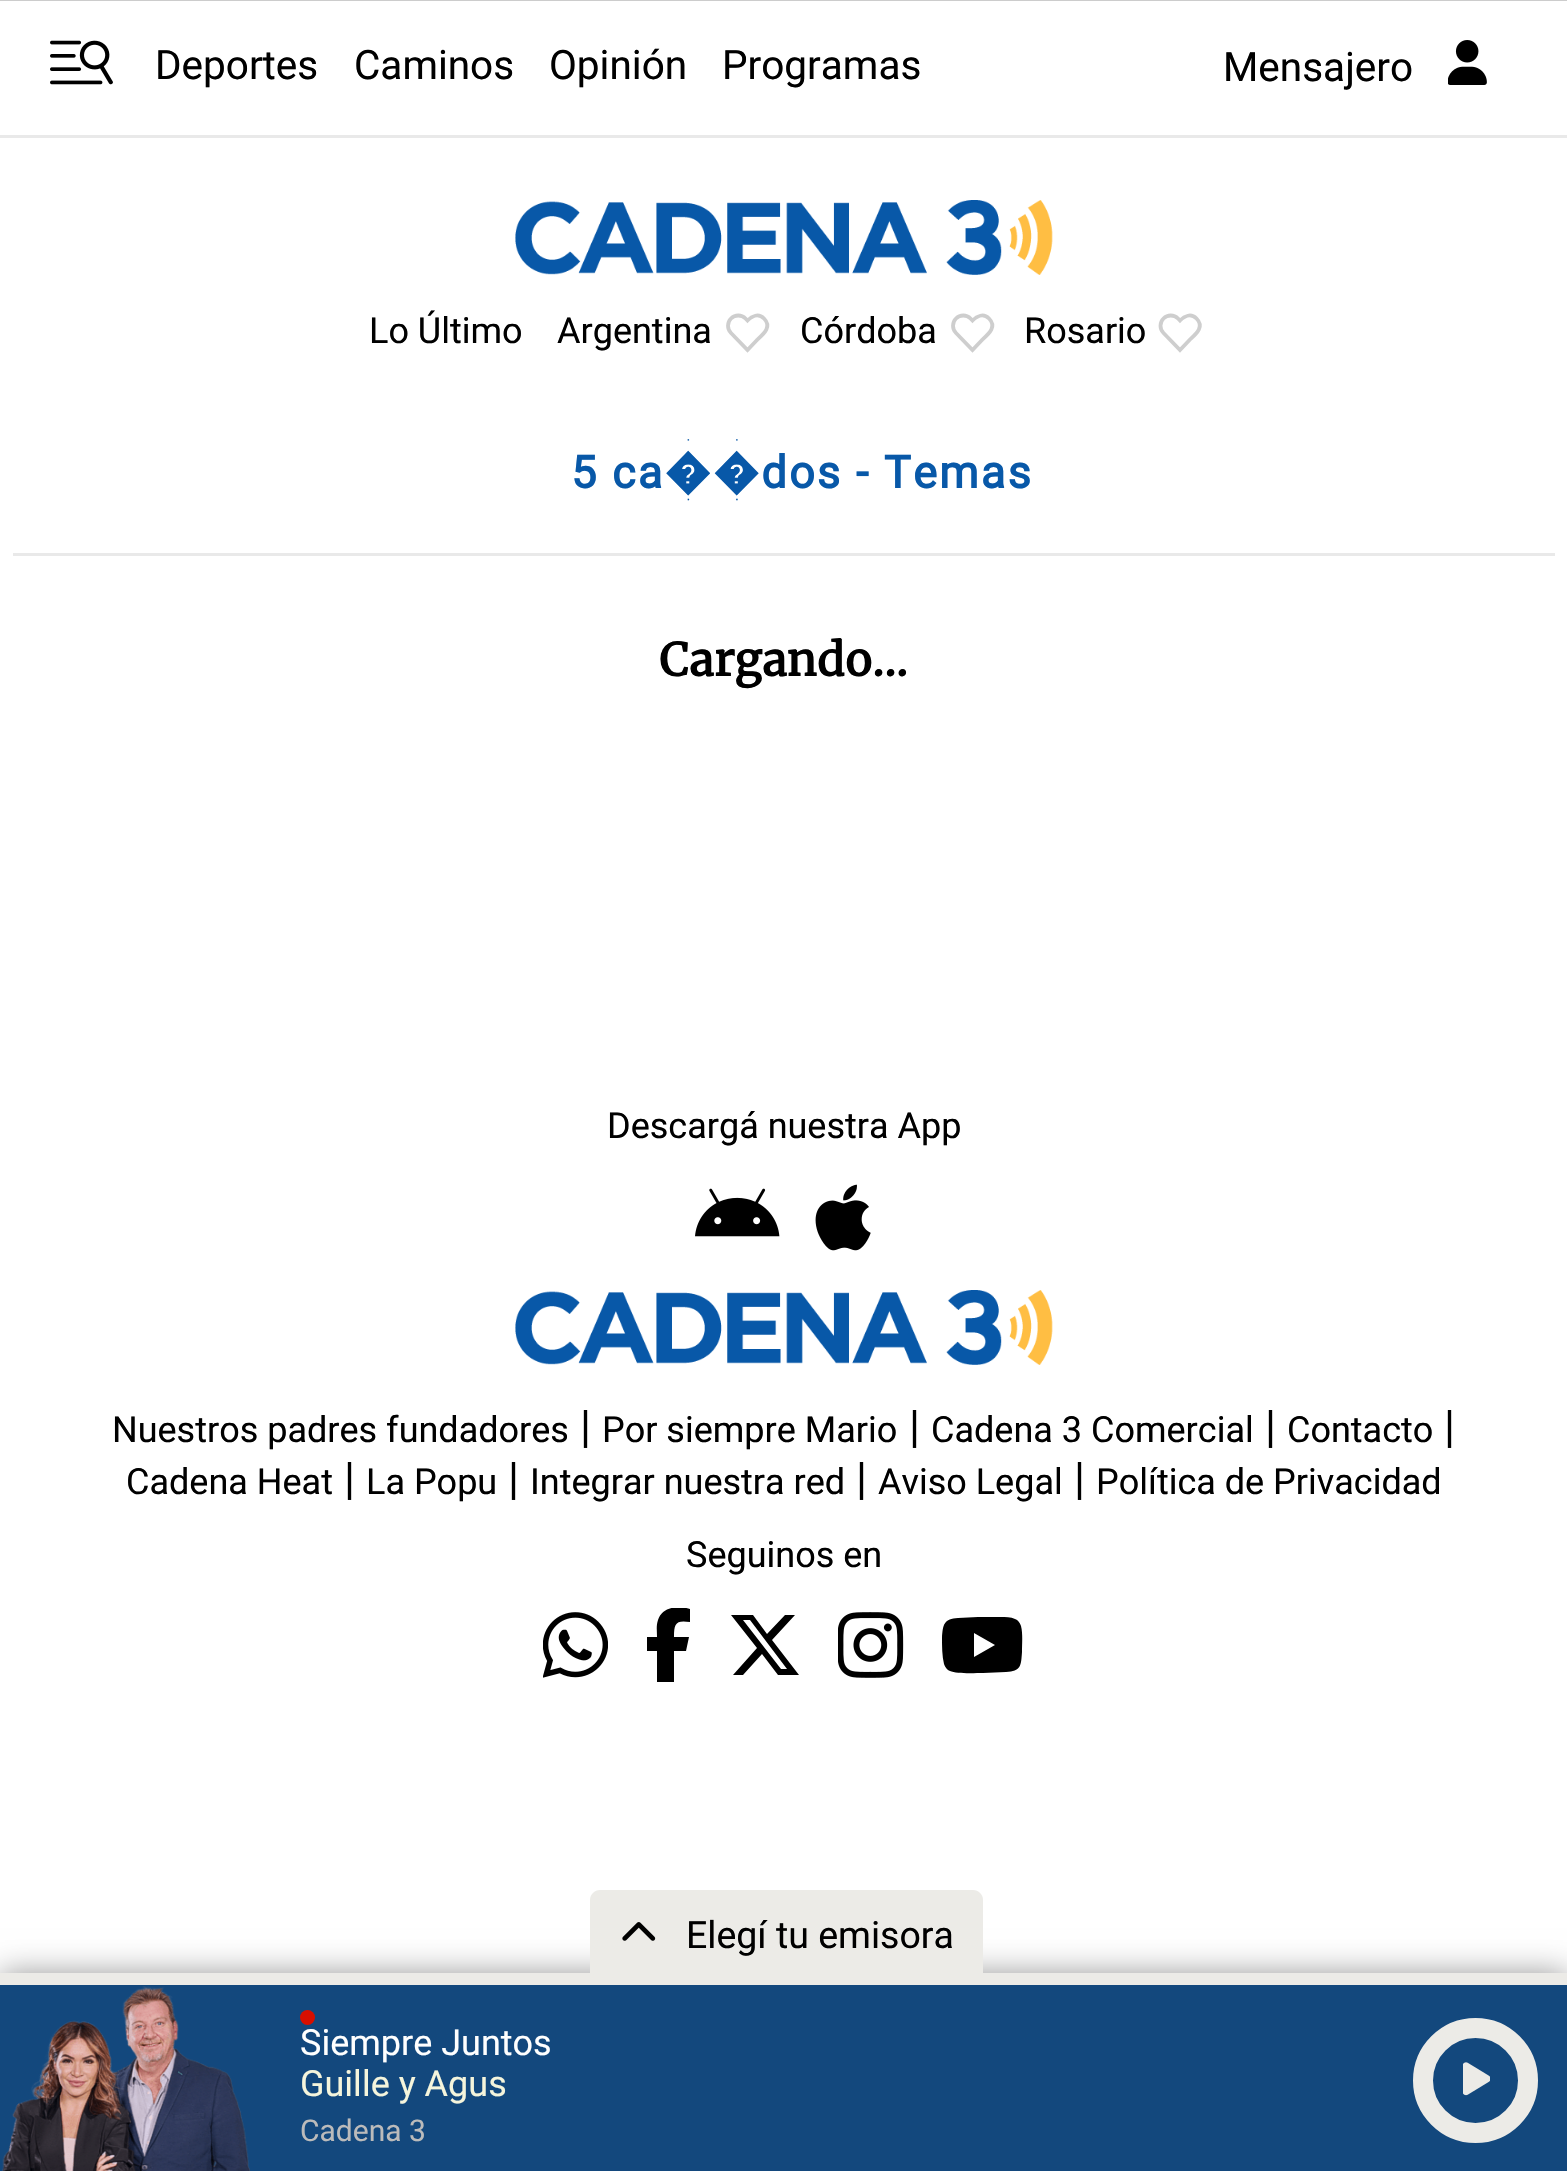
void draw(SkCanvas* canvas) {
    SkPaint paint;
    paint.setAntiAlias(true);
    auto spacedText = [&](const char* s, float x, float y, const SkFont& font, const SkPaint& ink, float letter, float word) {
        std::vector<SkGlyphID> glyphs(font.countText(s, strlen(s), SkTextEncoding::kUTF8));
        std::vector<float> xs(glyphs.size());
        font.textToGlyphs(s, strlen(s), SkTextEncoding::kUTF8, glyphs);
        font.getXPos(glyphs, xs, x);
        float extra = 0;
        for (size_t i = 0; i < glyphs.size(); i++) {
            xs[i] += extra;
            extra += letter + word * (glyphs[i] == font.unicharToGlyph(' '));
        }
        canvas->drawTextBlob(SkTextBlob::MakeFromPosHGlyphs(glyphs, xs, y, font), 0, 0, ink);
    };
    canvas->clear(0xFFFFFFFF);
    paint.setColor(0xFFE9E9E9);
    canvas->drawRect(SkRect::MakeXYWH(0, 135, 1567, 3), paint);
    canvas->drawImageRect(SkImages::DeferredFromEncodedData(SkData::MakeFromFileName("img1.png")), SkRect::MakeXYWH(50, 40, 63, 45), SkSamplingOptions());
    SkFont font1(fontMgr->matchFamilyStyle("Roboto", SkFontStyle::Normal()), 40.5f);
    font1.setSubpixel(true);
    paint.setColor(0xFF000000);
    canvas->drawString("Deportes", 155, 79, font1, paint);
    canvas->drawString("Caminos", 354, 79, font1, paint);
    canvas->drawString("Opinión", 549, 79, font1, paint);
    canvas->drawString("Programas", 722, 79, font1, paint);
    canvas->drawString("Mensajero", 1223, 81, font1, paint);
    canvas->drawImageRect(SkImages::DeferredFromEncodedData(SkData::MakeFromFileName("img2.png")), SkRect::MakeXYWH(1448, 40, 39, 45), SkSamplingOptions());
    canvas->drawImageRect(SkImages::DeferredFromEncodedData(SkData::MakeFromFileName("img3.png")), SkRect::MakeXYWH(515, 200, 538, 75), SkSamplingOptions());
    SkFont font2(fontMgr->matchFamilyStyle("Roboto", SkFontStyle::Normal()), 36);
    font2.setSubpixel(true);
    canvas->drawString("Lo Último", 369, 343, font2, paint);
    canvas->drawString("Argentina", 557, 343, font2, paint);
    paint.setStyle(SkPaint::kStroke_Style);
    paint.setStrokeWidth(3.8f);
    paint.setColor(0xFFCECECE);
    canvas->drawPath(SkPathBuilder().moveTo(764, 318.5f).cubicTo(758.5f, 313, 752, 316, 747.5f, 320.5f).lineTo(745.5f, 318.5f).cubicTo(741.5f, 314.5f, 735, 314.5f, 731, 318.5f).cubicTo(727, 322.5f, 727, 329, 731, 333).lineTo(747.5f, 350).lineTo(757, 340).cubicTo(763, 334.5f, 772.5f, 327, 764, 318.5f).close().detach(), paint);
    paint.setStyle(SkPaint::kFill_Style);
    paint.setColor(0xFF000000);
    canvas->drawString("Córdoba", 800, 343, font2, paint);
    paint.setStyle(SkPaint::kStroke_Style);
    paint.setColor(0xFFCECECE);
    canvas->drawPath(SkPathBuilder().moveTo(989, 318.5f).cubicTo(983.5f, 313, 977, 316, 972.5f, 320.5f).lineTo(970.5f, 318.5f).cubicTo(966.5f, 314.5f, 960, 314.5f, 956, 318.5f).cubicTo(952, 322.5f, 952, 329, 956, 333).lineTo(972.5f, 350).lineTo(982, 340).cubicTo(988, 334.5f, 997.5f, 327, 989, 318.5f).close().detach(), paint);
    paint.setStyle(SkPaint::kFill_Style);
    paint.setColor(0xFF000000);
    canvas->drawString("Rosario", 1024, 343, font2, paint);
    paint.setStyle(SkPaint::kStroke_Style);
    paint.setColor(0xFFCECECE);
    canvas->drawPath(SkPathBuilder().moveTo(1196.5f, 318.5f).cubicTo(1191, 313, 1184.5f, 316, 1180, 320.5f).lineTo(1178, 318.5f).cubicTo(1174, 314.5f, 1167.5f, 314.5f, 1163.5f, 318.5f).cubicTo(1159.5f, 322.5f, 1159.5f, 329, 1163.5f, 333).lineTo(1180, 350).lineTo(1189.5f, 340).cubicTo(1195.5f, 334.5f, 1205, 327, 1196.5f, 318.5f).close().detach(), paint);
    paint.setStyle(SkPaint::kFill_Style);
    paint.setColor(0xFFE9E9E9);
    canvas->drawRect(SkRect::MakeXYWH(13, 553, 1542, 3), paint);
    SkFont font3(fontMgr->matchFamilyStyle("Roboto", SkFontStyle::Bold()), 45);
    font3.setSubpixel(true);
    paint.setColor(0xFF0858A8);
    spacedText("5 ca��dos - Temas", 571, 488, font3, paint, 2.25f, 0);
    SkFont font4(fontMgr->matchFamilyStyle("Merriweather", SkFontStyle::Bold()), 45);
    font4.setSubpixel(true);
    paint.setColor(0xFF000000);
    canvas->drawString("Cargando...", 659, 676, font4, paint);
    paint.setColor(0xFFCCCCCC);
    canvas->drawRect(SkRect::MakeXYWH(0, 0, 1567, 1), paint);
    paint.setColor(0xFF000000);
    canvas->drawString("Descargá nuestra App", 607, 1138, font2, paint);
    canvas->drawImageRect(SkImages::DeferredFromEncodedData(SkData::MakeFromFileName("img4.png")), SkRect::MakeXYWH(695, 1188, 85, 49), SkSamplingOptions());
    canvas->drawImageRect(SkImages::DeferredFromEncodedData(SkData::MakeFromFileName("img5.png")), SkRect::MakeXYWH(815, 1184, 56, 67), SkSamplingOptions());
    canvas->drawImageRect(SkImages::DeferredFromEncodedData(SkData::MakeFromFileName("img6.png")), SkRect::MakeXYWH(515, 1290, 538, 75), SkSamplingOptions());
    canvas->drawString("Nuestros padres fundadores", 112, 1442, font2, paint);
    SkFont font5(fontMgr->matchFamilyStyle("Roboto", SkFontStyle::Normal()), 45);
    font5.setSubpixel(true);
    canvas->drawString("|", 580, 1442, font5, paint);
    canvas->drawString("Por siempre Mario", 602, 1442, font2, paint);
    canvas->drawString("|", 909, 1442, font5, paint);
    canvas->drawString("Cadena 3 Comercial", 931, 1442, font2, paint);
    canvas->drawString("|", 1265, 1442, font5, paint);
    canvas->drawString("Contacto", 1287, 1442, font2, paint);
    canvas->drawString("|", 1444, 1442, font5, paint);
    canvas->drawString("Cadena Heat", 126, 1494, font2, paint);
    canvas->drawString("|", 344, 1494, font5, paint);
    canvas->drawString("La Popu", 366, 1494, font2, paint);
    canvas->drawString("|", 508, 1494, font5, paint);
    canvas->drawString("Integrar nuestra red", 530, 1494, font2, paint);
    canvas->drawString("|", 856, 1494, font5, paint);
    canvas->drawString("Aviso Legal", 878, 1494, font2, paint);
    canvas->drawString("|", 1074, 1494, font5, paint);
    canvas->drawString("Política de Privacidad", 1096, 1494, font2, paint);
    canvas->drawString("Seguinos en", 686, 1567, font2, paint);
    canvas->drawImageRect(SkImages::DeferredFromEncodedData(SkData::MakeFromFileName("img7.png")), SkRect::MakeXYWH(543, 1612, 65, 66), SkSamplingOptions());
    canvas->save();
    canvas->clipRect(SkRect::MakeXYWH(645, 1608, 48, 75));
    canvas->drawPath(SkPathBuilder().moveTo(657, 1651).lineTo(657, 1682).lineTo(674, 1682).lineTo(674, 1651).lineTo(686, 1651).lineTo(689, 1637).lineTo(674, 1637).cubicTo(674, 1623, 676, 1620, 690, 1622).lineTo(690, 1609).cubicTo(678, 1605, 662, 1607, 658, 1620).cubicTo(656, 1626, 657, 1631, 657, 1637).lineTo(647, 1637).lineTo(647, 1651).close().detach(), paint);
    canvas->restore();
    canvas->drawPath(SkPathBuilder().moveTo(785, 1615).lineTo(795, 1615).lineTo(772, 1640).lineTo(799, 1675).lineTo(778, 1675).lineTo(762, 1654).lineTo(743, 1675).lineTo(733, 1675).lineTo(757, 1648).lineTo(731, 1615).lineTo(753, 1615).lineTo(767, 1634).close().moveTo(781, 1669).lineTo(787, 1669).lineTo(750, 1620).lineTo(743, 1620).close().detach(), paint);
    canvas->drawImageRect(SkImages::DeferredFromEncodedData(SkData::MakeFromFileName("img8.png")), SkRect::MakeXYWH(838, 1612, 66, 66), SkSamplingOptions());
    canvas->drawPath(SkPathBuilder().moveTo(1021, 1626).cubicTo(1020, 1623, 1018, 1620, 1015, 1619).cubicTo(1011, 1617, 1005, 1617, 1001, 1617).lineTo(978, 1617).lineTo(958, 1618).cubicTo(944, 1619, 943, 1624, 942, 1638).cubicTo(942, 1646, 942, 1656, 944, 1664).cubicTo(945, 1667, 947, 1670, 950, 1671).cubicTo(956, 1674, 975, 1673, 983, 1673).lineTo(1006, 1672).cubicTo(1021, 1671, 1021, 1666, 1022, 1652).cubicTo(1022, 1644, 1023, 1634, 1021, 1626).close().moveTo(974, 1657).lineTo(974, 1633).lineTo(995, 1645).close().detach(), paint);
    paint.setColor(0x66000000);
    paint.setMaskFilter(SkMaskFilter::MakeBlur(kNormal_SkBlurStyle, 15));
    canvas->drawRect(SkRect::MakeXYWH(0, 1973, 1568, 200), paint);
    paint.setMaskFilter(nullptr);
    paint.setColor(0xFF13487D);
    canvas->drawRect(SkRect::MakeXYWH(0, 1985, 1567, 186), paint);
    paint.setColor(0xFFECEBE7);
    canvas->drawRect(SkRect::MakeXYWH(0, 1973, 1567, 12), paint);
    canvas->drawPath(SkPathBuilder().moveTo(600, 1890).lineTo(973, 1890).cubicTo(978.5f, 1890, 983, 1894.5f, 983, 1900).lineTo(983, 1985).lineTo(590, 1985).lineTo(590, 1900).cubicTo(590, 1894.5f, 594.5f, 1890, 600, 1890).close().detach(), paint);
    canvas->drawImageRect(SkImages::DeferredFromEncodedData(SkData::MakeFromFileName("img9.png")), SkRect::MakeXYWH(622, 1922, 34, 19), SkSamplingOptions());
    SkFont font6(fontMgr->matchFamilyStyle("Roboto", SkFontStyle::Normal()), 37.5f);
    font6.setSubpixel(true);
    paint.setColor(0xFF000000);
    canvas->drawString("Elegí tu emisora", 686, 1948, font6, paint);
    canvas->drawImageRect(SkImages::DeferredFromEncodedData(SkData::MakeFromFileName("img10.png")), SkRect::MakeXYWH(2, 1986, 248, 185), SkSamplingOptions());
    paint.setColor(0xFFD70F00);
    canvas->drawCircle(307.5f, 2017.5f, 7.5f, paint);
    paint.setColor(0xFFFFFFFF);
    canvas->drawString("Siempre Juntos", 300, 2055, font2, paint);
    paint.setColor(0xFFF5F5DC);
    canvas->drawString("Guille y Agus", 300, 2096, font2, paint);
    SkFont font7(fontMgr->matchFamilyStyle("Roboto", SkFontStyle::Normal()), 30);
    font7.setSubpixel(true);
    paint.setColor(0xFFBBBBBB);
    canvas->drawString("Cadena 3", 300, 2141, font7, paint);
    paint.setStyle(SkPaint::kStroke_Style);
    paint.setStrokeWidth(20);
    paint.setColor(0xFFECEBE7);
    canvas->drawCircle(1475.5f, 2080.5f, 52.5f, paint);
    canvas->drawImageRect(SkImages::DeferredFromEncodedData(SkData::MakeFromFileName("img11.png")), SkRect::MakeXYWH(1463, 2062, 27, 34), SkSamplingOptions());
}
